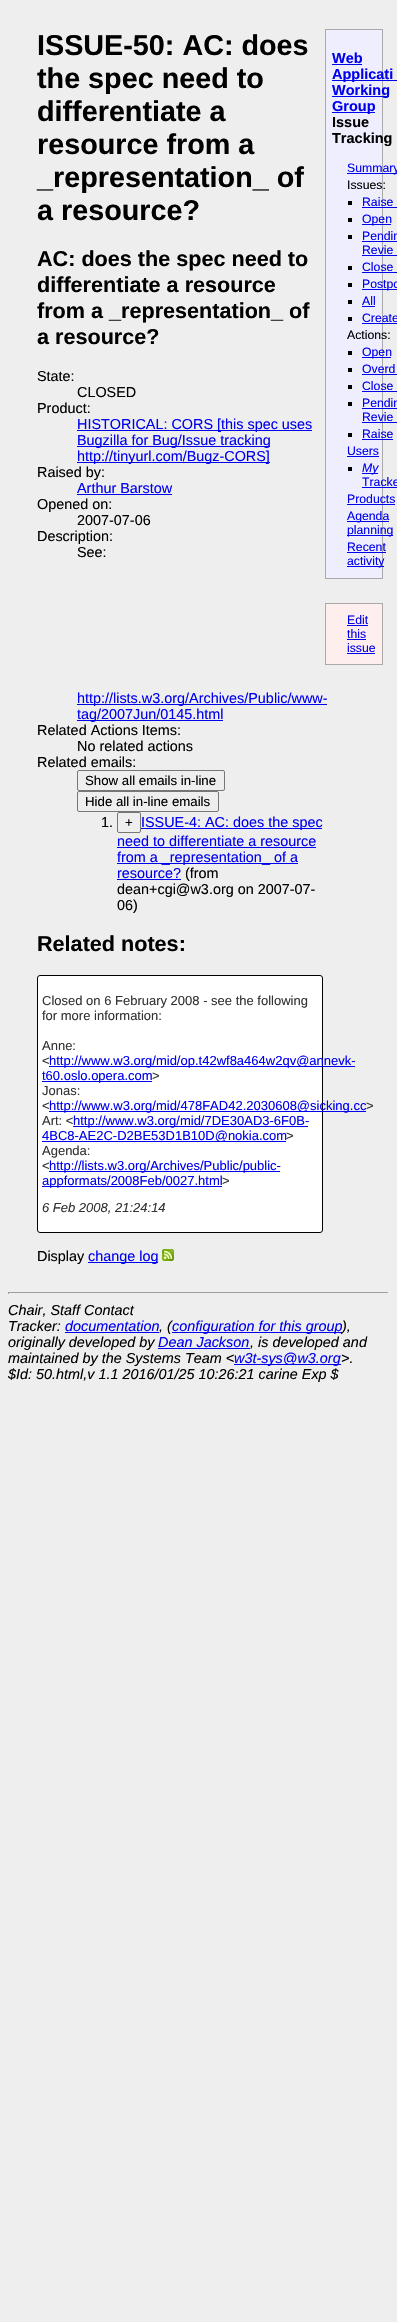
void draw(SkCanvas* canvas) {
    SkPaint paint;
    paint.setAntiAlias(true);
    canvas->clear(0xFFEEEEEE);
    SkFont font1(fontMgr->matchFamilyStyle("Liberation Sans", SkFontStyle::Bold()), 28.75f);
    font1.setSubpixel(true);
    paint.setColor(0xFF000000);
    canvas->drawString("ISSUE-50: AC: does", 37, 55, font1, paint);
    canvas->drawString("the spec need to", 37, 88, font1, paint);
    canvas->drawString("differentiate a", 37, 121, font1, paint);
    canvas->drawString("resource from a", 37, 154, font1, paint);
    canvas->drawString("_representation_ of", 37, 187, font1, paint);
    canvas->drawString("a resource?", 37, 220, font1, paint);
    SkFont font2(fontMgr->matchFamilyStyle("Liberation Sans", SkFontStyle::Bold()), 21.6f);
    font2.setSubpixel(true);
    canvas->drawString("AC: does the spec need to", 37, 266, font2, paint);
    canvas->drawString("differentiate a resource", 37, 292, font2, paint);
    canvas->drawString("from a _representation_ of", 37, 318, font2, paint);
    canvas->drawString("a resource?", 37, 344, font2, paint);
    SkFont font3(fontMgr->matchFamilyStyle("Liberation Sans", SkFontStyle::Normal()), 14.4f);
    font3.setSubpixel(true);
    canvas->drawString("State:", 37, 381, font3, paint);
    canvas->drawString("CLOSED", 77, 397, font3, paint);
    canvas->drawString("Product:", 37, 413, font3, paint);
    paint.setColor(0xFF0000EE);
    canvas->drawRect(SkRect::MakeXYWH(77, 430, 235, 1), paint);
    canvas->drawString("HISTORICAL: CORS [this spec uses", 77, 429, font3, paint);
    canvas->drawRect(SkRect::MakeXYWH(77, 446, 193, 1), paint);
    canvas->drawString("Bugzilla for Bug/Issue tracking", 77, 445, font3, paint);
    canvas->drawRect(SkRect::MakeXYWH(77, 462, 193, 1), paint);
    canvas->drawString("http://tinyurl.com/Bugz-CORS]", 77, 461, font3, paint);
    paint.setColor(0xFF000000);
    canvas->drawString("Raised by:", 37, 477, font3, paint);
    paint.setColor(0xFF0000EE);
    canvas->drawString("Arthur Barstow", 77, 493, font3, paint);
    canvas->drawRect(SkRect::MakeXYWH(77, 494, 95, 1), paint);
    paint.setColor(0xFF000000);
    canvas->drawString("Opened on:", 37, 509, font3, paint);
    canvas->drawString("2007-07-06", 77, 525, font3, paint);
    canvas->drawString("Description:", 37, 541, font3, paint);
    canvas->drawString("See:", 77, 557, font3, paint);
    paint.setColor(0xFF0000EE);
    canvas->drawRect(SkRect::MakeXYWH(77, 704, 250, 1), paint);
    canvas->drawString("http://lists.w3.org/Archives/Public/www-", 77, 703, font3, paint);
    canvas->drawRect(SkRect::MakeXYWH(77, 720, 146, 1), paint);
    canvas->drawString("tag/2007Jun/0145.html", 77, 719, font3, paint);
    paint.setColor(0xFF000000);
    canvas->drawString("Related Actions Items:", 37, 735, font3, paint);
    canvas->drawString("No related actions", 77, 751, font3, paint);
    canvas->drawString("Related emails:", 37, 767, font3, paint);
    paint.setStyle(SkPaint::kStroke_Style);
    paint.setStrokeWidth(1);
    paint.setColor(0xFF767676);
    canvas->drawRoundRect(SkRect::MakeXYWH(77.5f, 770.5f, 147, 20), 1.5f, 1.5f, paint);
    SkFont font4(fontMgr->matchFamilyStyle("Liberation Sans", SkFontStyle::Normal()), 13.25f);
    font4.setSubpixel(true);
    paint.setStyle(SkPaint::kFill_Style);
    paint.setColor(0xFF000000);
    canvas->drawString("Show all emails in-line", 85, 785, font4, paint);
    paint.setStyle(SkPaint::kStroke_Style);
    paint.setColor(0xFF767676);
    canvas->drawRoundRect(SkRect::MakeXYWH(77.5f, 791.5f, 141, 20), 1.5f, 1.5f, paint);
    paint.setStyle(SkPaint::kFill_Style);
    paint.setColor(0xFF000000);
    canvas->drawString("Hide all in-line emails", 85, 806, font4, paint);
    canvas->drawString("1.", 101, 827, font3, paint);
    paint.setStyle(SkPaint::kStroke_Style);
    paint.setColor(0xFF767676);
    canvas->drawRoundRect(SkRect::MakeXYWH(117.5f, 812.5f, 23, 20), 1.5f, 1.5f, paint);
    paint.setStyle(SkPaint::kFill_Style);
    paint.setColor(0xFF000000);
    canvas->drawString("+", 125, 827, font4, paint);
    paint.setColor(0xFF0000EE);
    canvas->drawRect(SkRect::MakeXYWH(141, 828, 181, 1), paint);
    canvas->drawString("ISSUE-4: AC: does the spec", 141, 827, font3, paint);
    canvas->drawString("need to differentiate a resource", 117, 846, font3, paint);
    canvas->drawRect(SkRect::MakeXYWH(117, 847, 199, 1), paint);
    canvas->drawRect(SkRect::MakeXYWH(117, 863, 181, 1), paint);
    canvas->drawString("from a _representation_ of a", 117, 862, font3, paint);
    canvas->drawString("resource?", 117, 878, font3, paint);
    canvas->drawRect(SkRect::MakeXYWH(117, 879, 64, 1), paint);
    paint.setColor(0xFF000000);
    canvas->drawString("(from", 185, 878, font3, paint);
    canvas->drawString("dean+cgi@w3.org on 2007-07-", 117, 894, font3, paint);
    canvas->drawString("06)", 117, 910, font3, paint);
    canvas->drawString("Related notes:", 37, 951, font2, paint);
    paint.setColor(0xFFFFFFFF);
    canvas->drawRoundRect(SkRect::MakeXYWH(37.5f, 975.5f, 285, 257), 2.5f, 2.5f, paint);
    paint.setStyle(SkPaint::kStroke_Style);
    paint.setColor(0xFF000000);
    canvas->drawRoundRect(SkRect::MakeXYWH(37.5f, 975.5f, 285, 257), 2.5f, 2.5f, paint);
    SkFont font5(fontMgr->matchFamilyStyle("Liberation Sans", SkFontStyle::Normal()), 13);
    font5.setSubpixel(true);
    paint.setStyle(SkPaint::kFill_Style);
    paint.setColor(0xFF333333);
    canvas->drawString("Closed on 6 February 2008 - see the following", 42, 1005, font5, paint);
    canvas->drawString("for more information:", 42, 1020, font5, paint);
    canvas->drawString("Anne:", 42, 1050, font5, paint);
    canvas->drawString("<", 42, 1065, font5, paint);
    paint.setColor(0xFF0000EE);
    canvas->drawRect(SkRect::MakeXYWH(49, 1066, 306, 1), paint);
    canvas->drawString("http://www.w3.org/mid/op.t42wf8a464w2qv@annevk-", 49, 1065, font5, paint);
    canvas->drawRect(SkRect::MakeXYWH(42, 1081, 110, 1), paint);
    canvas->drawString("t60.oslo.opera.com", 42, 1080, font5, paint);
    paint.setColor(0xFF333333);
    canvas->drawString(">", 152, 1080, font5, paint);
    canvas->drawString("Jonas:", 42, 1095, font5, paint);
    canvas->drawString("<", 42, 1110, font5, paint);
    paint.setColor(0xFF0000EE);
    canvas->drawRect(SkRect::MakeXYWH(49, 1111, 317, 1), paint);
    canvas->drawString("http://www.w3.org/mid/478FAD42.2030608@sicking.cc", 49, 1110, font5, paint);
    paint.setColor(0xFF333333);
    canvas->drawString(">", 366, 1110, font5, paint);
    canvas->drawString("Art: <", 42, 1125, font5, paint);
    paint.setColor(0xFF0000EE);
    canvas->drawRect(SkRect::MakeXYWH(73, 1126, 235, 1), paint);
    canvas->drawString("http://www.w3.org/mid/7DE30AD3-6F0B-", 73, 1125, font5, paint);
    canvas->drawRect(SkRect::MakeXYWH(42, 1141, 244, 1), paint);
    canvas->drawString("4BC8-AE2C-D2BE53D1B10D@nokia.com", 42, 1140, font5, paint);
    paint.setColor(0xFF333333);
    canvas->drawString(">", 286, 1140, font5, paint);
    canvas->drawString("Agenda:", 42, 1155, font5, paint);
    canvas->drawString("<", 42, 1170, font5, paint);
    paint.setColor(0xFF0000EE);
    canvas->drawRect(SkRect::MakeXYWH(49, 1171, 231, 1), paint);
    canvas->drawString("http://lists.w3.org/Archives/Public/public-", 49, 1170, font5, paint);
    canvas->drawRect(SkRect::MakeXYWH(42, 1186, 180, 1), paint);
    canvas->drawString("appformats/2008Feb/0027.html", 42, 1185, font5, paint);
    paint.setColor(0xFF333333);
    canvas->drawString(">", 222, 1185, font5, paint);
    SkFont font6(fontMgr->matchFamilyStyle("Liberation Sans", SkFontStyle::Italic()), 13);
    font6.setSubpixel(true);
    canvas->drawString("6 Feb 2008, 21:24:14", 42, 1212, font6, paint);
    paint.setColor(0xFF000000);
    canvas->drawString("Display", 37, 1261, font3, paint);
    paint.setColor(0xFF0000EE);
    canvas->drawRect(SkRect::MakeXYWH(88, 1262, 70, 1), paint);
    canvas->drawString("change log", 88, 1261, font3, paint);
    canvas->drawImageRect(SkImages::DeferredFromEncodedData(SkData::MakeFromFileName("img1.png")), SkRect::MakeXYWH(162, 1249, 12, 12), SkSamplingOptions());
    paint.setColor(0xFFEEEEFF);
    canvas->drawRect(SkRect::MakeXYWH(325.5f, 29.5f, 57, 549), paint);
    paint.setStyle(SkPaint::kStroke_Style);
    paint.setColor(0xFFAAAAAA);
    canvas->drawRect(SkRect::MakeXYWH(325.5f, 29.5f, 57, 549), paint);
    SkFont font7(fontMgr->matchFamilyStyle("Liberation Sans", SkFontStyle::Bold()), 14.5f);
    font7.setSubpixel(true);
    paint.setStyle(SkPaint::kFill_Style);
    paint.setColor(0xFF0000EE);
    canvas->drawString("Web", 332, 63, font7, paint);
    canvas->drawRect(SkRect::MakeXYWH(332, 64, 30, 1), paint);
    canvas->drawRect(SkRect::MakeXYWH(332, 80, 65, 1), paint);
    canvas->drawString("Applicati", 332, 79, font7, paint);
    canvas->drawRect(SkRect::MakeXYWH(332, 96, 57, 1), paint);
    canvas->drawString("Working", 332, 95, font7, paint);
    canvas->drawRect(SkRect::MakeXYWH(332, 112, 43, 1), paint);
    canvas->drawString("Group", 332, 111, font7, paint);
    paint.setColor(0xFF000000);
    canvas->drawString("Issue", 332, 127, font7, paint);
    canvas->drawString("Tracking", 332, 143, font7, paint);
    paint.setColor(0xFF0000EE);
    canvas->drawRect(SkRect::MakeXYWH(347, 173, 50, 1), paint);
    SkFont font8(fontMgr->matchFamilyStyle("Liberation Sans", SkFontStyle::Normal()), 12.25f);
    font8.setSubpixel(true);
    canvas->drawString("Summary", 347, 172, font8, paint);
    paint.setColor(0xFF000000);
    canvas->drawString("Issues:", 347, 189, font8, paint);
    canvas->drawRect(SkRect::MakeXYWH(348, 201, 4, 4), paint);
    paint.setColor(0xFF0000EE);
    canvas->drawString("Raise", 362, 206, font8, paint);
    canvas->drawRect(SkRect::MakeXYWH(362, 207, 35, 1), paint);
    paint.setColor(0xFF000000);
    canvas->drawRect(SkRect::MakeXYWH(348, 218, 4, 4), paint);
    paint.setColor(0xFF0000EE);
    canvas->drawRect(SkRect::MakeXYWH(362, 224, 29, 1), paint);
    canvas->drawString("Open", 362, 223, font8, paint);
    paint.setColor(0xFF000000);
    canvas->drawRect(SkRect::MakeXYWH(348, 235, 4, 4), paint);
    paint.setColor(0xFF0000EE);
    canvas->drawString("Pendin", 362, 240, font8, paint);
    canvas->drawRect(SkRect::MakeXYWH(362, 241, 35, 1), paint);
    canvas->drawString("Revie", 362, 254, font8, paint);
    canvas->drawRect(SkRect::MakeXYWH(362, 255, 35, 1), paint);
    paint.setColor(0xFF000000);
    canvas->drawRect(SkRect::MakeXYWH(348, 266, 4, 4), paint);
    paint.setColor(0xFF0000EE);
    canvas->drawString("Close", 362, 271, font8, paint);
    canvas->drawRect(SkRect::MakeXYWH(362, 272, 35, 1), paint);
    paint.setColor(0xFF000000);
    canvas->drawRect(SkRect::MakeXYWH(348, 283, 4, 4), paint);
    paint.setColor(0xFF0000EE);
    canvas->drawRect(SkRect::MakeXYWH(362, 289, 35, 1), paint);
    canvas->drawString("Postpo", 362, 288, font8, paint);
    paint.setColor(0xFF000000);
    canvas->drawRect(SkRect::MakeXYWH(348, 300, 4, 4), paint);
    paint.setColor(0xFF0000EE);
    canvas->drawString("All", 362, 305, font8, paint);
    canvas->drawRect(SkRect::MakeXYWH(362, 306, 13, 1), paint);
    paint.setColor(0xFF000000);
    canvas->drawRect(SkRect::MakeXYWH(348, 317, 4, 4), paint);
    paint.setColor(0xFF0000EE);
    canvas->drawString("Create", 362, 322, font8, paint);
    canvas->drawRect(SkRect::MakeXYWH(362, 323, 35, 1), paint);
    paint.setColor(0xFF000000);
    canvas->drawString("Actions:", 347, 339, font8, paint);
    canvas->drawRect(SkRect::MakeXYWH(348, 351, 4, 4), paint);
    paint.setColor(0xFF0000EE);
    canvas->drawRect(SkRect::MakeXYWH(362, 357, 29, 1), paint);
    canvas->drawString("Open", 362, 356, font8, paint);
    paint.setColor(0xFF000000);
    canvas->drawRect(SkRect::MakeXYWH(348, 368, 4, 4), paint);
    paint.setColor(0xFF0000EE);
    canvas->drawString("Overd", 362, 373, font8, paint);
    canvas->drawRect(SkRect::MakeXYWH(362, 374, 35, 1), paint);
    paint.setColor(0xFF000000);
    canvas->drawRect(SkRect::MakeXYWH(348, 385, 4, 4), paint);
    paint.setColor(0xFF0000EE);
    canvas->drawString("Close", 362, 390, font8, paint);
    canvas->drawRect(SkRect::MakeXYWH(362, 391, 35, 1), paint);
    paint.setColor(0xFF000000);
    canvas->drawRect(SkRect::MakeXYWH(348, 402, 4, 4), paint);
    paint.setColor(0xFF0000EE);
    canvas->drawString("Pendin", 362, 407, font8, paint);
    canvas->drawRect(SkRect::MakeXYWH(362, 408, 35, 1), paint);
    canvas->drawString("Revie", 362, 421, font8, paint);
    canvas->drawRect(SkRect::MakeXYWH(362, 422, 35, 1), paint);
    paint.setColor(0xFF000000);
    canvas->drawRect(SkRect::MakeXYWH(348, 433, 4, 4), paint);
    paint.setColor(0xFF0000EE);
    canvas->drawString("Raise", 362, 438, font8, paint);
    canvas->drawRect(SkRect::MakeXYWH(362, 439, 31, 1), paint);
    canvas->drawString("Users", 347, 455, font8, paint);
    canvas->drawRect(SkRect::MakeXYWH(347, 456, 32, 1), paint);
    paint.setColor(0xFF000000);
    canvas->drawRect(SkRect::MakeXYWH(348, 467, 4, 4), paint);
    paint.setColor(0xFF0000EE);
    canvas->drawRect(SkRect::MakeXYWH(362, 473, 16, 1), paint);
    SkFont font9(fontMgr->matchFamilyStyle("Liberation Sans", SkFontStyle::Italic()), 12.25f);
    font9.setSubpixel(true);
    canvas->drawString("My", 362, 472, font9, paint);
    canvas->drawString("Tracke", 362, 486, font8, paint);
    canvas->drawRect(SkRect::MakeXYWH(362, 487, 35, 1), paint);
    canvas->drawString("Products", 347, 503, font8, paint);
    canvas->drawRect(SkRect::MakeXYWH(347, 504, 48, 1), paint);
    canvas->drawRect(SkRect::MakeXYWH(347, 521, 42, 1), paint);
    canvas->drawString("Agenda", 347, 520, font8, paint);
    canvas->drawRect(SkRect::MakeXYWH(347, 535, 46, 1), paint);
    canvas->drawString("planning", 347, 534, font8, paint);
    canvas->drawString("Recent", 347, 551, font8, paint);
    canvas->drawRect(SkRect::MakeXYWH(347, 552, 39, 1), paint);
    canvas->drawRect(SkRect::MakeXYWH(347, 566, 37, 1), paint);
    canvas->drawString("activity", 347, 565, font8, paint);
    paint.setColor(0xFFFFEEEE);
    canvas->drawRect(SkRect::MakeXYWH(325.5f, 603.5f, 57, 61), paint);
    paint.setStyle(SkPaint::kStroke_Style);
    paint.setColor(0xFFAAAAAA);
    canvas->drawRect(SkRect::MakeXYWH(325.5f, 603.5f, 57, 61), paint);
    paint.setStyle(SkPaint::kFill_Style);
    paint.setColor(0xFF0000EE);
    canvas->drawString("Edit", 347, 624, font8, paint);
    canvas->drawRect(SkRect::MakeXYWH(347, 625, 21, 1), paint);
    canvas->drawString("this", 347, 638, font8, paint);
    canvas->drawRect(SkRect::MakeXYWH(347, 639, 19, 1), paint);
    canvas->drawString("issue", 347, 652, font8, paint);
    canvas->drawRect(SkRect::MakeXYWH(347, 653, 28, 1), paint);
    paint.setColor(0xFF9F9F9F);
    canvas->drawRect(SkRect::MakeXYWH(8, 1292, 381, 1), paint);
    paint.setColor(0xFFEEEEEE);
    canvas->drawRect(SkRect::MakeXYWH(388, 1292, 1, 2), paint);
    paint.setColor(0xFF9F9F9F);
    canvas->drawRect(SkRect::MakeXYWH(8, 1292, 1, 2), paint);
    SkFont font10(fontMgr->matchFamilyStyle("Liberation Sans", SkFontStyle::Italic()), 14.4f);
    font10.setSubpixel(true);
    paint.setColor(0xFF000000);
    canvas->drawString("Chair, Staff Contact", 8, 1315, font10, paint);
    canvas->drawString("Tracker:", 8, 1331, font10, paint);
    paint.setColor(0xFF0000EE);
    canvas->drawString("documentation", 65, 1331, font10, paint);
    canvas->drawRect(SkRect::MakeXYWH(65, 1332, 94, 1), paint);
    paint.setColor(0xFF000000);
    canvas->drawString(", (", 159, 1331, font10, paint);
    paint.setColor(0xFF0000EE);
    canvas->drawRect(SkRect::MakeXYWH(172, 1332, 170, 1), paint);
    canvas->drawString("configuration for this group", 172, 1331, font10, paint);
    paint.setColor(0xFF000000);
    canvas->drawString("),", 342, 1331, font10, paint);
    canvas->drawString("originally developed by", 8, 1347, font10, paint);
    paint.setColor(0xFF0000EE);
    canvas->drawString("Dean Jackson", 158, 1347, font10, paint);
    canvas->drawRect(SkRect::MakeXYWH(158, 1348, 92, 1), paint);
    paint.setColor(0xFF000000);
    canvas->drawString(", is developed and", 250, 1347, font10, paint);
    canvas->drawString("maintained by the Systems Team <", 8, 1363, font10, paint);
    paint.setColor(0xFF0000EE);
    canvas->drawRect(SkRect::MakeXYWH(234, 1364, 107, 1), paint);
    canvas->drawString("w3t-sys@w3.org", 234, 1363, font10, paint);
    paint.setColor(0xFF000000);
    canvas->drawString(">.", 341, 1363, font10, paint);
    canvas->drawString("$Id: 50.html,v 1.1 2016/01/25 10:26:21 carine Exp $", 8, 1379, font10, paint);
}
